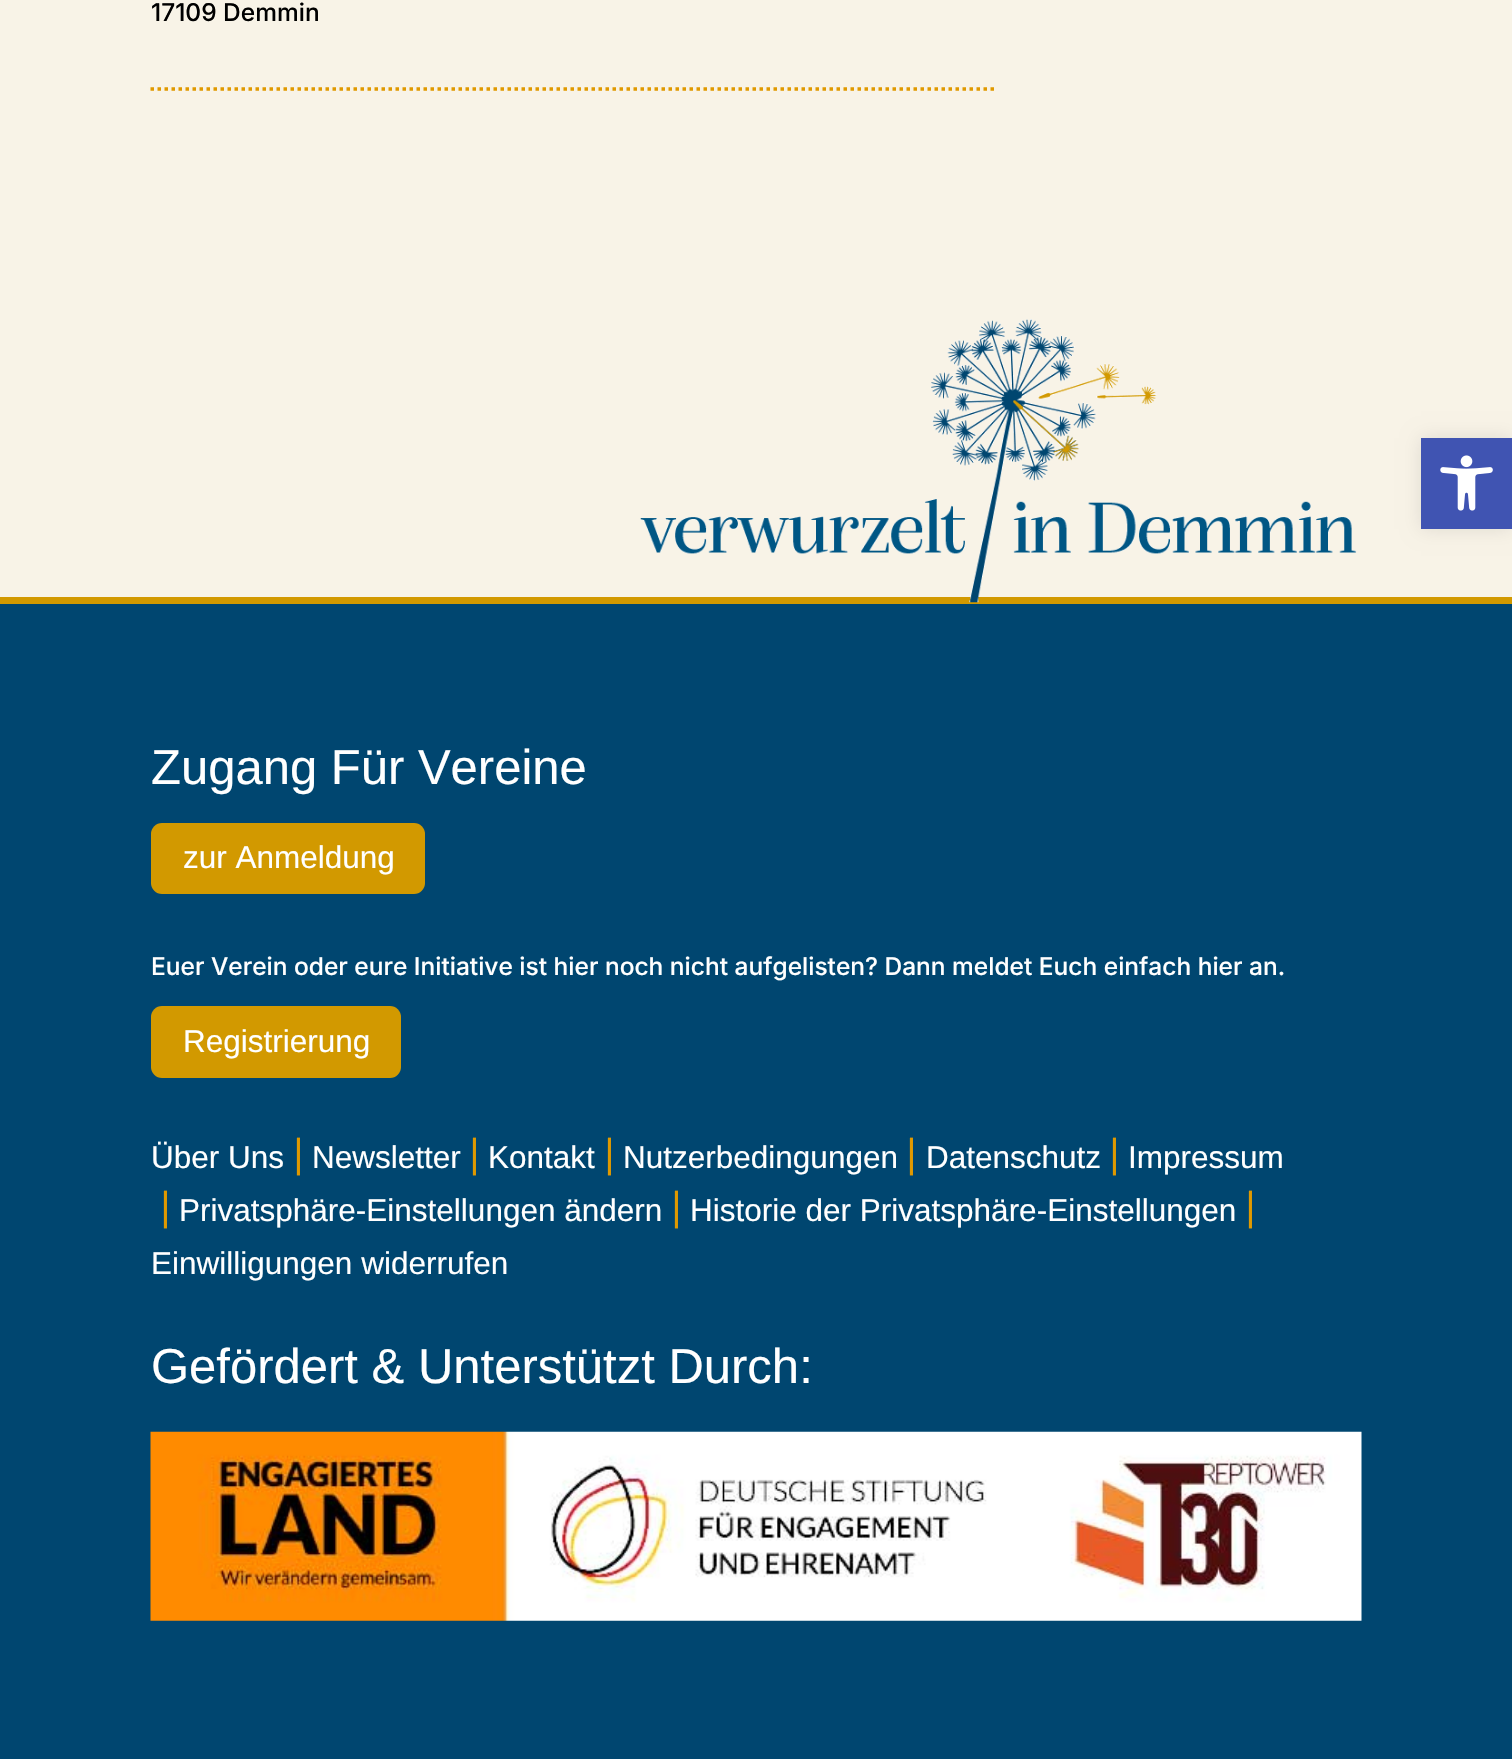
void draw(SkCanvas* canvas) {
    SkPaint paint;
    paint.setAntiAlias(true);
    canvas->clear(0xFFF8F3E7);
    SkFont font1(fontMgr->matchFamilyStyle("Inter", SkFontStyle(500, SkFontStyle::kNormal_Width, SkFontStyle::kUpright_Slant)), 24.5f);
    font1.setSubpixel(true);
    paint.setColor(0xFF000000);
    canvas->drawString("17109 Demmin", 151, 21, font1, paint);
    paint.setStyle(SkPaint::kStroke_Style);
    paint.setStrokeWidth(3.5f);
    paint.setColor(0xFFE09900);
    paint.setPathEffect(SkDashPathEffect::Make({{3.5f, 3.5f}}, 0));
    canvas->drawPath(SkPathBuilder().moveTo(150.5f, 89).lineTo(997.5f, 89).detach(), paint);
    paint.setPathEffect(nullptr);
    paint.setStyle(SkPaint::kFill_Style);
    paint.setColor(0xFFD29900);
    canvas->drawRect(SkRect::MakeXYWH(0, 597, 1512, 7), paint);
    canvas->drawImageRect(SkImages::DeferredFromEncodedData(SkData::MakeFromFileName("img1.png")), SkRect::MakeXYWH(640, 319, 717, 284), SkSamplingOptions());
    paint.setColor(0xFF004670);
    canvas->drawRect(SkRect::MakeXYWH(0, 604, 1512, 1155), paint);
    SkFont font2(fontMgr->matchFamilyStyle("Liberation Sans", SkFontStyle::Normal()), 49);
    font2.setSubpixel(true);
    paint.setColor(0xFFFFFFFF);
    canvas->drawString("Zugang Für Vereine", 151, 784, font2, paint);
    paint.setColor(0xFFD29900);
    canvas->drawRoundRect(SkRect::MakeXYWH(151, 823, 274, 71), 11, 11, paint);
    SkFont font3(fontMgr->matchFamilyStyle("Liberation Sans", SkFontStyle::Normal()), 31.5f);
    font3.setSubpixel(true);
    paint.setColor(0xFFFFFFFF);
    canvas->drawString("zur Anmeldung", 183, 868, font3, paint);
    canvas->drawString("Euer Verein oder eure Initiative ist hier noch nicht aufgelisten? Dann meldet Euch einfach hier an.", 151, 975, font1, paint);
    paint.setColor(0xFFD29900);
    canvas->drawRoundRect(SkRect::MakeXYWH(151, 1006, 250, 72), 11, 11, paint);
    paint.setColor(0xFFFFFFFF);
    canvas->drawString("Registrierung", 183, 1052, font3, paint);
    canvas->drawString("Über Uns", 151, 1168, font3, paint);
    SkFont font4(fontMgr->matchFamilyStyle("Inter", SkFontStyle(500, SkFontStyle::kNormal_Width, SkFontStyle::kUpright_Slant)), 31.5f);
    font4.setSubpixel(true);
    paint.setColor(0xFFE09900);
    canvas->drawString("|", 293, 1168, font4, paint);
    paint.setColor(0xFFFFFFFF);
    canvas->drawString("Newsletter", 312, 1168, font3, paint);
    paint.setColor(0xFFE09900);
    canvas->drawString("|", 469, 1168, font4, paint);
    paint.setColor(0xFFFFFFFF);
    canvas->drawString("Kontakt", 488, 1168, font3, paint);
    paint.setColor(0xFFE09900);
    canvas->drawString("|", 604, 1168, font4, paint);
    paint.setColor(0xFFFFFFFF);
    canvas->drawString("Nutzerbedingungen", 623, 1168, font3, paint);
    paint.setColor(0xFFE09900);
    canvas->drawString("|", 906, 1168, font4, paint);
    paint.setColor(0xFFFFFFFF);
    canvas->drawString("Datenschutz", 926, 1168, font3, paint);
    paint.setColor(0xFFE09900);
    canvas->drawString("|", 1109, 1168, font4, paint);
    paint.setColor(0xFFFFFFFF);
    canvas->drawString("Impressum", 1128, 1168, font3, paint);
    paint.setColor(0xFFE09900);
    canvas->drawString("|", 160, 1221, font4, paint);
    paint.setColor(0xFFFFFFFF);
    canvas->drawString("Privatsphäre-Einstellungen ändern", 179, 1221, font3, paint);
    paint.setColor(0xFFE09900);
    canvas->drawString("|", 671, 1221, font4, paint);
    paint.setColor(0xFFFFFFFF);
    canvas->drawString("Historie der Privatsphäre-Einstellungen", 690, 1221, font3, paint);
    paint.setColor(0xFFE09900);
    canvas->drawString("|", 1245, 1221, font4, paint);
    paint.setColor(0xFFFFFFFF);
    canvas->drawString("Einwilligungen widerrufen", 151, 1274, font3, paint);
    canvas->drawString("Gefördert & Unterstützt Durch:", 151, 1383, font2, paint);
    canvas->drawImageRect(SkImages::DeferredFromEncodedData(SkData::MakeFromFileName("img2.png")), SkRect::MakeXYWH(150, 1431, 1212, 190), SkSamplingOptions());
    paint.setColor(0x1A000000);
    paint.setMaskFilter(SkMaskFilter::MakeBlur(kNormal_SkBlurStyle, 9));
    canvas->drawRect(SkRect::MakeXYWH(1421, 438, 91, 91), paint);
    paint.setMaskFilter(nullptr);
    paint.setColor(0xFF4054B2);
    canvas->drawRect(SkRect::MakeXYWH(1421, 438, 91, 91), paint);
    canvas->drawImageRect(SkImages::DeferredFromEncodedData(SkData::MakeFromFileName("img3.png")), SkRect::MakeXYWH(1440, 455, 53, 56), SkSamplingOptions());
}
